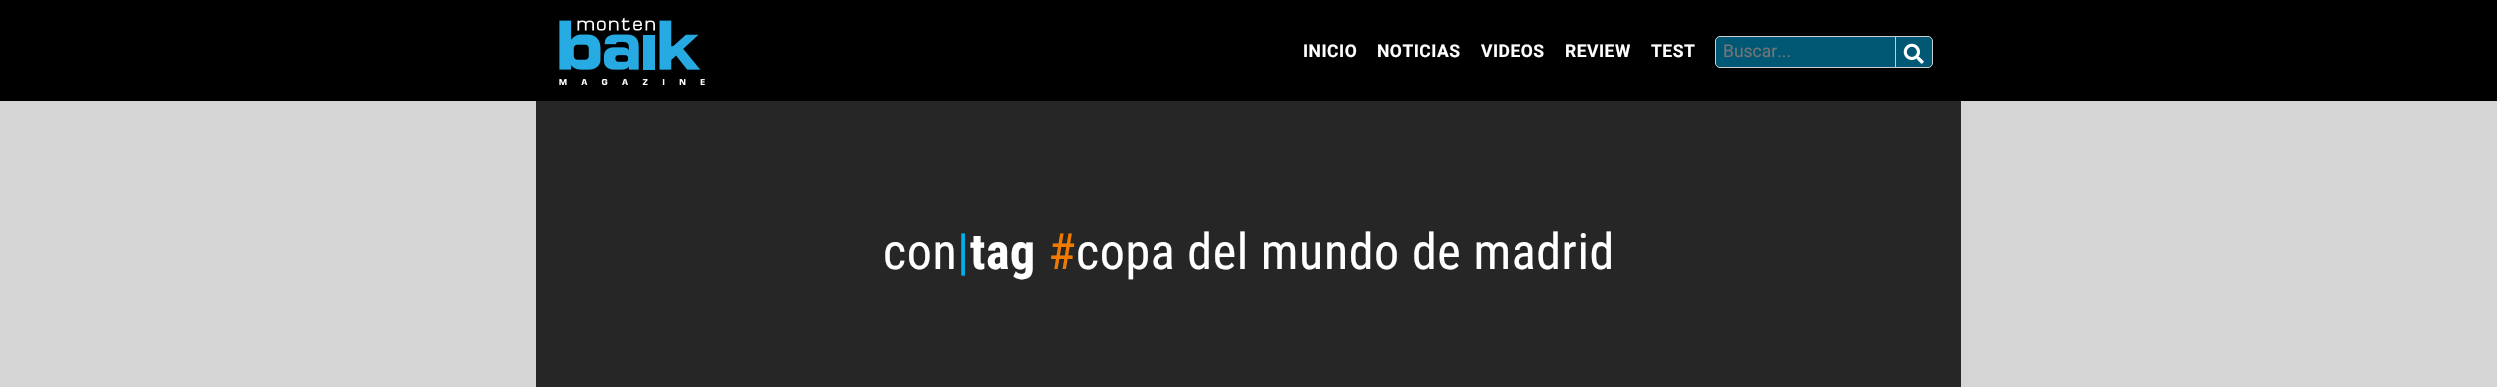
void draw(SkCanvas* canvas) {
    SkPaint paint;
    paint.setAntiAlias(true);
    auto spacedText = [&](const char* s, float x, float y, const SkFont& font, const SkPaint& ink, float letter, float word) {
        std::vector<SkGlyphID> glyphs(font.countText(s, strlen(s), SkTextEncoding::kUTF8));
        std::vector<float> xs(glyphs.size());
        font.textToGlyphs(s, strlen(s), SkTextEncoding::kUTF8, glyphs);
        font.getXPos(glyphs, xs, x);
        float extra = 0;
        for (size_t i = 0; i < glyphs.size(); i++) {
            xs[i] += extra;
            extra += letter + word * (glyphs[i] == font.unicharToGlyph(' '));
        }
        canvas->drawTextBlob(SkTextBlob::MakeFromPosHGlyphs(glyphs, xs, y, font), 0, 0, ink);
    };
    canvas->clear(0xFFD5D5D5);
    paint.setColor(0xFF000000);
    canvas->drawRect(SkRect::MakeXYWH(0, 0, 2497, 101), paint);
    canvas->drawImageRect(SkImages::DeferredFromEncodedData(SkData::MakeFromFileName("img1.png")), SkRect::MakeXYWH(559, 17, 146, 68), SkSamplingOptions());
    SkFont font1(fontMgr->matchFamilyStyle("Roboto", SkFontStyle::Bold()), 17.5f);
    font1.setSubpixel(true);
    paint.setColor(0xFFFFFFFF);
    spacedText("INICIO", 1303, 57, font1, paint, 0.5f, 0);
    spacedText("NOTICIAS", 1377, 57, font1, paint, 0.5f, 0);
    spacedText("VIDEOS", 1481, 57, font1, paint, 0.5f, 0);
    spacedText("REVIEW", 1565, 57, font1, paint, 0.5f, 0);
    spacedText("TEST", 1651, 57, font1, paint, 0.5f, 0);
    paint.setColor(0xFF005875);
    canvas->drawPath(SkPathBuilder().moveTo(1720, 36.5f).lineTo(1895.5f, 36.5f).lineTo(1895.5f, 67.5f).lineTo(1720, 67.5f).cubicTo(1717.5f, 67.5f, 1715.5f, 65.5f, 1715.5f, 63).lineTo(1715.5f, 41).cubicTo(1715.5f, 38.5f, 1717.5f, 36.5f, 1720, 36.5f).close().detach(), paint);
    paint.setStyle(SkPaint::kStroke_Style);
    paint.setStrokeWidth(1);
    paint.setColor(0xFFCCCCCC);
    canvas->drawPath(SkPathBuilder().moveTo(1720, 36.5f).lineTo(1895.5f, 36.5f).lineTo(1895.5f, 67.5f).lineTo(1720, 67.5f).cubicTo(1717.5f, 67.5f, 1715.5f, 65.5f, 1715.5f, 63).lineTo(1715.5f, 41).cubicTo(1715.5f, 38.5f, 1717.5f, 36.5f, 1720, 36.5f).close().detach(), paint);
    SkFont font2(fontMgr->matchFamilyStyle("Roboto", SkFontStyle::Normal()), 17.5f);
    font2.setSubpixel(true);
    paint.setStyle(SkPaint::kFill_Style);
    paint.setColor(0xFF757575);
    canvas->drawString("Buscar...", 1723, 57, font2, paint);
    paint.setColor(0xFF005875);
    canvas->drawPath(SkPathBuilder().moveTo(1895.5f, 36.5f).lineTo(1928, 36.5f).cubicTo(1930.5f, 36.5f, 1932.5f, 38.5f, 1932.5f, 41).lineTo(1932.5f, 63).cubicTo(1932.5f, 65.5f, 1930.5f, 67.5f, 1928, 67.5f).lineTo(1895.5f, 67.5f).close().detach(), paint);
    paint.setStyle(SkPaint::kStroke_Style);
    paint.setColor(0xFFCCCCCC);
    canvas->drawPath(SkPathBuilder().moveTo(1895.5f, 36.5f).lineTo(1928, 36.5f).cubicTo(1930.5f, 36.5f, 1932.5f, 38.5f, 1932.5f, 41).lineTo(1932.5f, 63).cubicTo(1932.5f, 65.5f, 1930.5f, 67.5f, 1928, 67.5f).lineTo(1895.5f, 67.5f).close().detach(), paint);
    canvas->drawImageRect(SkImages::DeferredFromEncodedData(SkData::MakeFromFileName("img2.png")), SkRect::MakeXYWH(1903, 43, 21, 21), SkSamplingOptions());
    paint.setStyle(SkPaint::kFill_Style);
    paint.setColor(0xFF262626);
    canvas->drawRect(SkRect::MakeXYWH(536, 101, 1425, 286), paint);
    SkFont font3(fontMgr->matchFamilyStyle("Roboto Condensed", SkFontStyle::Normal()), 50);
    font3.setSubpixel(true);
    paint.setColor(0xFFFFFFFF);
    spacedText("con", 883, 269, font3, paint, 0.6f, 0);
    paint.setColor(0xFF00B0EA);
    spacedText("|", 957, 269, font3, paint, 0.6f, 0);
    SkFont font4(fontMgr->matchFamilyStyle("Roboto Condensed", SkFontStyle::Bold()), 50);
    font4.setSubpixel(true);
    paint.setColor(0xFFFFFFFF);
    spacedText("tag", 970, 269, font4, paint, 0.6f, 0);
    paint.setColor(0xFFF07900);
    spacedText("#", 1048, 269, font3, paint, 0.6f, 0);
    paint.setColor(0xFFFFFFFF);
    spacedText("copa del mundo de madrid", 1076, 269, font3, paint, 0.6f, 0);
}
